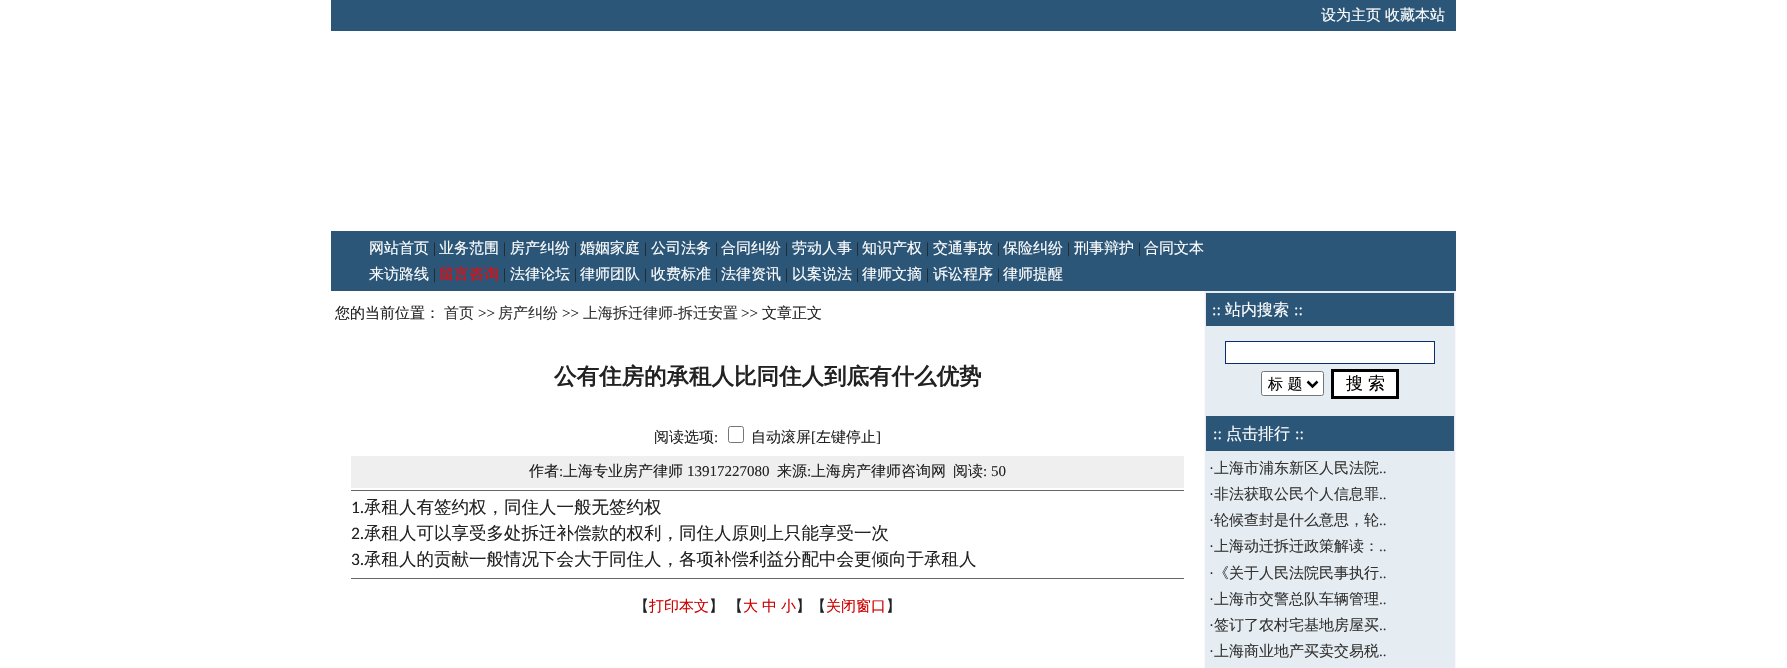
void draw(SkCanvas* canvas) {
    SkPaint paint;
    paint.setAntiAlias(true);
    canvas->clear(0xFFFFFFFF);
    paint.setColor(0xFF2B5677);
    canvas->drawRect(SkRect::MakeXYWH(331, 0, 1125, 31), paint);
    SkFont font1(fontMgr->matchFamilyStyle("WenQuanYi Zen Hei", SkFontStyle(500, SkFontStyle::kNormal_Width, SkFontStyle::kUpright_Slant)), 15);
    font1.setSubpixel(true);
    paint.setColor(0xFFFFFFFF);
    canvas->drawString("设为主页", 1321, 20, font1, paint);
    canvas->drawString("收藏本站", 1385, 20, font1, paint);
    paint.setColor(0xFF2B5677);
    canvas->drawRect(SkRect::MakeXYWH(331, 231, 1125, 60), paint);
    paint.setColor(0xFFFFFFFF);
    canvas->drawString("网站首页", 369, 253, font1, paint);
    SkFont font2(fontMgr->matchFamilyStyle("Liberation Serif", SkFontStyle::Normal()), 15);
    font2.setSubpixel(true);
    paint.setColor(0xFF222222);
    canvas->drawString("|", 433, 253, font2, paint);
    paint.setColor(0xFFFFFFFF);
    canvas->drawString("业务范围", 439, 253, font1, paint);
    paint.setColor(0xFF222222);
    canvas->drawString("|", 503, 253, font2, paint);
    paint.setColor(0xFFFFFFFF);
    canvas->drawString("房产纠纷", 510, 253, font1, paint);
    paint.setColor(0xFF222222);
    canvas->drawString("|", 574, 253, font2, paint);
    paint.setColor(0xFFFFFFFF);
    canvas->drawString("婚姻家庭", 580, 253, font1, paint);
    paint.setColor(0xFF222222);
    canvas->drawString("|", 644, 253, font2, paint);
    paint.setColor(0xFFFFFFFF);
    canvas->drawString("公司法务", 651, 253, font1, paint);
    paint.setColor(0xFF222222);
    canvas->drawString("|", 715, 253, font2, paint);
    paint.setColor(0xFFFFFFFF);
    canvas->drawString("合同纠纷", 721, 253, font1, paint);
    paint.setColor(0xFF222222);
    canvas->drawString("|", 785, 253, font2, paint);
    paint.setColor(0xFFFFFFFF);
    canvas->drawString("劳动人事", 792, 253, font1, paint);
    paint.setColor(0xFF222222);
    canvas->drawString("|", 856, 253, font2, paint);
    paint.setColor(0xFFFFFFFF);
    canvas->drawString("知识产权", 862, 253, font1, paint);
    paint.setColor(0xFF222222);
    canvas->drawString("|", 926, 253, font2, paint);
    paint.setColor(0xFFFFFFFF);
    canvas->drawString("交通事故", 933, 253, font1, paint);
    paint.setColor(0xFF222222);
    canvas->drawString("|", 997, 253, font2, paint);
    paint.setColor(0xFFFFFFFF);
    canvas->drawString("保险纠纷", 1003, 253, font1, paint);
    paint.setColor(0xFF222222);
    canvas->drawString("|", 1067, 253, font2, paint);
    paint.setColor(0xFFFFFFFF);
    canvas->drawString("刑事辩护", 1074, 253, font1, paint);
    paint.setColor(0xFF222222);
    canvas->drawString("|", 1138, 253, font2, paint);
    paint.setColor(0xFFFFFFFF);
    canvas->drawString("合同文本", 1144, 253, font1, paint);
    canvas->drawString("来访路线", 369, 279, font1, paint);
    paint.setColor(0xFF222222);
    canvas->drawString("|", 433, 279, font2, paint);
    paint.setColor(0xFFFF0000);
    canvas->drawString("留言咨询", 439, 279, font1, paint);
    paint.setColor(0xFF222222);
    canvas->drawString("|", 503, 279, font2, paint);
    paint.setColor(0xFFFFFFFF);
    canvas->drawString("法律论坛", 510, 279, font1, paint);
    paint.setColor(0xFF222222);
    canvas->drawString("|", 574, 279, font2, paint);
    paint.setColor(0xFFFFFFFF);
    canvas->drawString("律师团队", 580, 279, font1, paint);
    paint.setColor(0xFF222222);
    canvas->drawString("|", 644, 279, font2, paint);
    paint.setColor(0xFFFFFFFF);
    canvas->drawString("收费标准", 651, 279, font1, paint);
    paint.setColor(0xFF222222);
    canvas->drawString("|", 715, 279, font2, paint);
    paint.setColor(0xFFFFFFFF);
    canvas->drawString("法律资讯", 721, 279, font1, paint);
    paint.setColor(0xFF222222);
    canvas->drawString("|", 785, 279, font2, paint);
    paint.setColor(0xFFFFFFFF);
    canvas->drawString("以案说法", 792, 279, font1, paint);
    paint.setColor(0xFF222222);
    canvas->drawString("|", 856, 279, font2, paint);
    paint.setColor(0xFFFFFFFF);
    canvas->drawString("律师文摘", 862, 279, font1, paint);
    paint.setColor(0xFF222222);
    canvas->drawString("|", 926, 279, font2, paint);
    paint.setColor(0xFFFFFFFF);
    canvas->drawString("诉讼程序", 933, 279, font1, paint);
    paint.setColor(0xFF222222);
    canvas->drawString("|", 997, 279, font2, paint);
    paint.setColor(0xFFFFFFFF);
    canvas->drawString("律师提醒", 1003, 279, font1, paint);
    paint.setColor(0xFF222222);
    canvas->drawString("您的当前位置：", 335, 318, font1, paint);
    paint.setColor(0xFF333333);
    canvas->drawString("首页", 444, 318, font1, paint);
    paint.setColor(0xFF222222);
    canvas->drawString(">>", 478, 318, font2, paint);
    paint.setColor(0xFF333333);
    canvas->drawString("房产纠纷", 498, 318, font1, paint);
    paint.setColor(0xFF222222);
    canvas->drawString(">>", 562, 318, font2, paint);
    paint.setColor(0xFF333333);
    canvas->drawString("上海拆迁律师", 583, 318, font1, paint);
    canvas->drawString("-", 673, 318, font2, paint);
    canvas->drawString("拆迁安置", 678, 318, font1, paint);
    paint.setColor(0xFF222222);
    canvas->drawString(">>", 741, 318, font2, paint);
    canvas->drawString("文章正文", 762, 318, font1, paint);
    SkFont font3(fontMgr->matchFamilyStyle("WenQuanYi Zen Hei", SkFontStyle::Bold()), 22.5f);
    font3.setSubpixel(true);
    canvas->drawString("公有住房的承租人比同住人到底有什么优势", 554, 384, font3, paint);
    canvas->drawString("阅读选项", 654, 442, font1, paint);
    canvas->drawString(":", 714, 442, font2, paint);
    paint.setStyle(SkPaint::kStroke_Style);
    paint.setStrokeWidth(1);
    paint.setColor(0xFF767676);
    canvas->drawRoundRect(SkRect::MakeXYWH(728.5f, 426.5f, 15, 16), 2, 2, paint);
    paint.setStyle(SkPaint::kFill_Style);
    paint.setColor(0xFF222222);
    canvas->drawString("自动滚屏", 751, 442, font1, paint);
    canvas->drawString("[", 811, 442, font2, paint);
    canvas->drawString("左键停止", 816, 442, font1, paint);
    canvas->drawString("]", 876, 442, font2, paint);
    paint.setColor(0xFFEFEFEF);
    canvas->drawRect(SkRect::MakeXYWH(351, 456, 833, 32), paint);
    paint.setColor(0xFF222222);
    canvas->drawString("作者", 529, 476, font1, paint);
    canvas->drawString(":", 559, 476, font2, paint);
    canvas->drawString("上海专业房产律师", 563, 476, font1, paint);
    canvas->drawString("13917227080", 687, 476, font2, paint);
    canvas->drawString("来源", 777, 476, font1, paint);
    canvas->drawString(":", 807, 476, font2, paint);
    canvas->drawString("上海房产律师咨询网", 811, 476, font1, paint);
    canvas->drawString("阅读", 953, 476, font1, paint);
    canvas->drawString(": 50", 983, 476, font2, paint);
    paint.setColor(0xFF666666);
    canvas->drawRect(SkRect::MakeXYWH(351, 490, 833, 1), paint);
    SkFont font4(fontMgr->matchFamilyStyle("Carlito", SkFontStyle::Normal()), 17.5f);
    font4.setSubpixel(true);
    paint.setColor(0xFF222222);
    canvas->drawString("1.", 351, 513, font4, paint);
    SkFont font5(fontMgr->matchFamilyStyle("WenQuanYi Zen Hei", SkFontStyle(500, SkFontStyle::kNormal_Width, SkFontStyle::kUpright_Slant)), 17.5f);
    font5.setSubpixel(true);
    canvas->drawString("承租人有签约权，同住人一般无签约权", 364, 513, font5, paint);
    canvas->drawString("2.", 351, 539, font4, paint);
    canvas->drawString("承租人可以享受多处拆迁补偿款的权利，同住人原则上只能享受一次", 364, 539, font5, paint);
    canvas->drawString("3.", 351, 565, font4, paint);
    canvas->drawString("承租人的贡献一般情况下会大于同住人，各项补偿利益分配中会更倾向于承租人", 364, 565, font5, paint);
    paint.setColor(0xFF666666);
    canvas->drawRect(SkRect::MakeXYWH(351, 578, 833, 1), paint);
    paint.setColor(0xFF222222);
    canvas->drawString("【", 634, 611, font1, paint);
    paint.setColor(0xFFCC0000);
    canvas->drawString("打印本文", 649, 611, font1, paint);
    paint.setColor(0xFF222222);
    canvas->drawString("】", 709, 611, font1, paint);
    canvas->drawString("【", 728, 611, font1, paint);
    paint.setColor(0xFFCC0000);
    canvas->drawString("大", 743, 611, font1, paint);
    canvas->drawString("中", 762, 611, font1, paint);
    canvas->drawString("小", 781, 611, font1, paint);
    paint.setColor(0xFF222222);
    canvas->drawString("】【", 796, 611, font1, paint);
    paint.setColor(0xFFCC0000);
    canvas->drawString("关闭窗口", 826, 611, font1, paint);
    paint.setColor(0xFF222222);
    canvas->drawString("】", 886, 611, font1, paint);
    paint.setColor(0xFFE6EDF2);
    canvas->drawRect(SkRect::MakeXYWH(1205, 291, 250, 377), paint);
    paint.setColor(0xFFFDF5FE);
    canvas->drawRect(SkRect::MakeXYWH(1455, 291, 1, 377), paint);
    canvas->drawRect(SkRect::MakeXYWH(1204, 291, 1, 377), paint);
    paint.setColor(0xFF2B5677);
    canvas->drawRect(SkRect::MakeXYWH(1206, 293, 248, 33), paint);
    SkFont font6(fontMgr->matchFamilyStyle("Liberation Serif", SkFontStyle::Normal()), 16);
    font6.setSubpixel(true);
    paint.setColor(0xFFFFFFFF);
    canvas->drawString("::", 1212, 315, font6, paint);
    SkFont font7(fontMgr->matchFamilyStyle("WenQuanYi Zen Hei", SkFontStyle(500, SkFontStyle::kNormal_Width, SkFontStyle::kUpright_Slant)), 16);
    font7.setSubpixel(true);
    canvas->drawString("站内搜索", 1225, 315, font7, paint);
    canvas->drawString("::", 1294, 315, font6, paint);
    canvas->drawRect(SkRect::MakeXYWH(1226, 342, 208, 21), paint);
    paint.setColor(0xFF082D71);
    canvas->drawRect(SkRect::MakeXYWH(1225, 341, 210, 1), paint);
    canvas->drawRect(SkRect::MakeXYWH(1434, 341, 1, 23), paint);
    canvas->drawRect(SkRect::MakeXYWH(1225, 363, 210, 1), paint);
    paint.setColor(0xFF082D72);
    canvas->drawRect(SkRect::MakeXYWH(1225, 341, 1, 23), paint);
    paint.setColor(0xFFFFFFFF);
    canvas->drawRoundRect(SkRect::MakeXYWH(1261.5f, 371.5f, 62, 24), 2, 2, paint);
    paint.setStyle(SkPaint::kStroke_Style);
    paint.setColor(0xFF767676);
    canvas->drawRoundRect(SkRect::MakeXYWH(1261.5f, 371.5f, 62, 24), 2, 2, paint);
    paint.setStrokeWidth(2.5f);
    paint.setColor(0xFF000000);
    canvas->drawPath(SkPathBuilder().moveTo(1307.5f, 381.5f).lineTo(1312.5f, 386.5f).lineTo(1317.5f, 381.5f).detach(), paint);
    paint.setStyle(SkPaint::kFill_Style);
    canvas->drawString("标 题", 1268, 389, font1, paint);
    paint.setColor(0xFFFFFFFF);
    canvas->drawRect(SkRect::MakeXYWH(1332.5f, 370.5f, 65, 27), paint);
    paint.setStyle(SkPaint::kStroke_Style);
    paint.setStrokeWidth(3);
    paint.setColor(0xFF000000);
    canvas->drawRect(SkRect::MakeXYWH(1332.5f, 370.5f, 65, 27), paint);
    SkFont font8(fontMgr->matchFamilyStyle("WenQuanYi Zen Hei", SkFontStyle(500, SkFontStyle::kNormal_Width, SkFontStyle::kUpright_Slant)), 17);
    font8.setSubpixel(true);
    paint.setStyle(SkPaint::kFill_Style);
    canvas->drawString("搜 索", 1346, 389, font8, paint);
    paint.setColor(0xFF2B5677);
    canvas->drawRect(SkRect::MakeXYWH(1206, 416, 248, 35), paint);
    paint.setColor(0xFFFFFFFF);
    canvas->drawString("::", 1213, 439, font6, paint);
    canvas->drawString("点击排行", 1226, 439, font7, paint);
    canvas->drawString("::", 1295, 439, font6, paint);
    paint.setColor(0xFF222222);
    canvas->drawString("·", 1209, 473, font2, paint);
    paint.setColor(0xFF333333);
    canvas->drawString("上海市浦东新区人民法院", 1214, 473, font1, paint);
    canvas->drawString("..", 1379, 473, font2, paint);
    paint.setColor(0xFF222222);
    canvas->drawString("·", 1209, 499, font2, paint);
    paint.setColor(0xFF333333);
    canvas->drawString("非法获取公民个人信息罪", 1214, 499, font1, paint);
    canvas->drawString("..", 1379, 499, font2, paint);
    paint.setColor(0xFF222222);
    canvas->drawString("·", 1209, 525, font2, paint);
    paint.setColor(0xFF333333);
    canvas->drawString("轮候查封是什么意思，轮", 1214, 525, font1, paint);
    canvas->drawString("..", 1379, 525, font2, paint);
    paint.setColor(0xFF222222);
    canvas->drawString("·", 1209, 551, font2, paint);
    paint.setColor(0xFF333333);
    canvas->drawString("上海动迁拆迁政策解读：", 1214, 551, font1, paint);
    canvas->drawString("..", 1379, 551, font2, paint);
    paint.setColor(0xFF222222);
    canvas->drawString("·", 1209, 578, font2, paint);
    paint.setColor(0xFF333333);
    canvas->drawString("《关于人民法院民事执行", 1214, 578, font1, paint);
    canvas->drawString("..", 1379, 578, font2, paint);
    paint.setColor(0xFF222222);
    canvas->drawString("·", 1209, 604, font2, paint);
    paint.setColor(0xFF333333);
    canvas->drawString("上海市交警总队车辆管理", 1214, 604, font1, paint);
    canvas->drawString("..", 1379, 604, font2, paint);
    paint.setColor(0xFF222222);
    canvas->drawString("·", 1209, 630, font2, paint);
    paint.setColor(0xFF333333);
    canvas->drawString("签订了农村宅基地房屋买", 1214, 630, font1, paint);
    canvas->drawString("..", 1379, 630, font2, paint);
    paint.setColor(0xFF222222);
    canvas->drawString("·", 1209, 656, font2, paint);
    paint.setColor(0xFF333333);
    canvas->drawString("上海商业地产买卖交易税", 1214, 656, font1, paint);
    canvas->drawString("..", 1379, 656, font2, paint);
}
